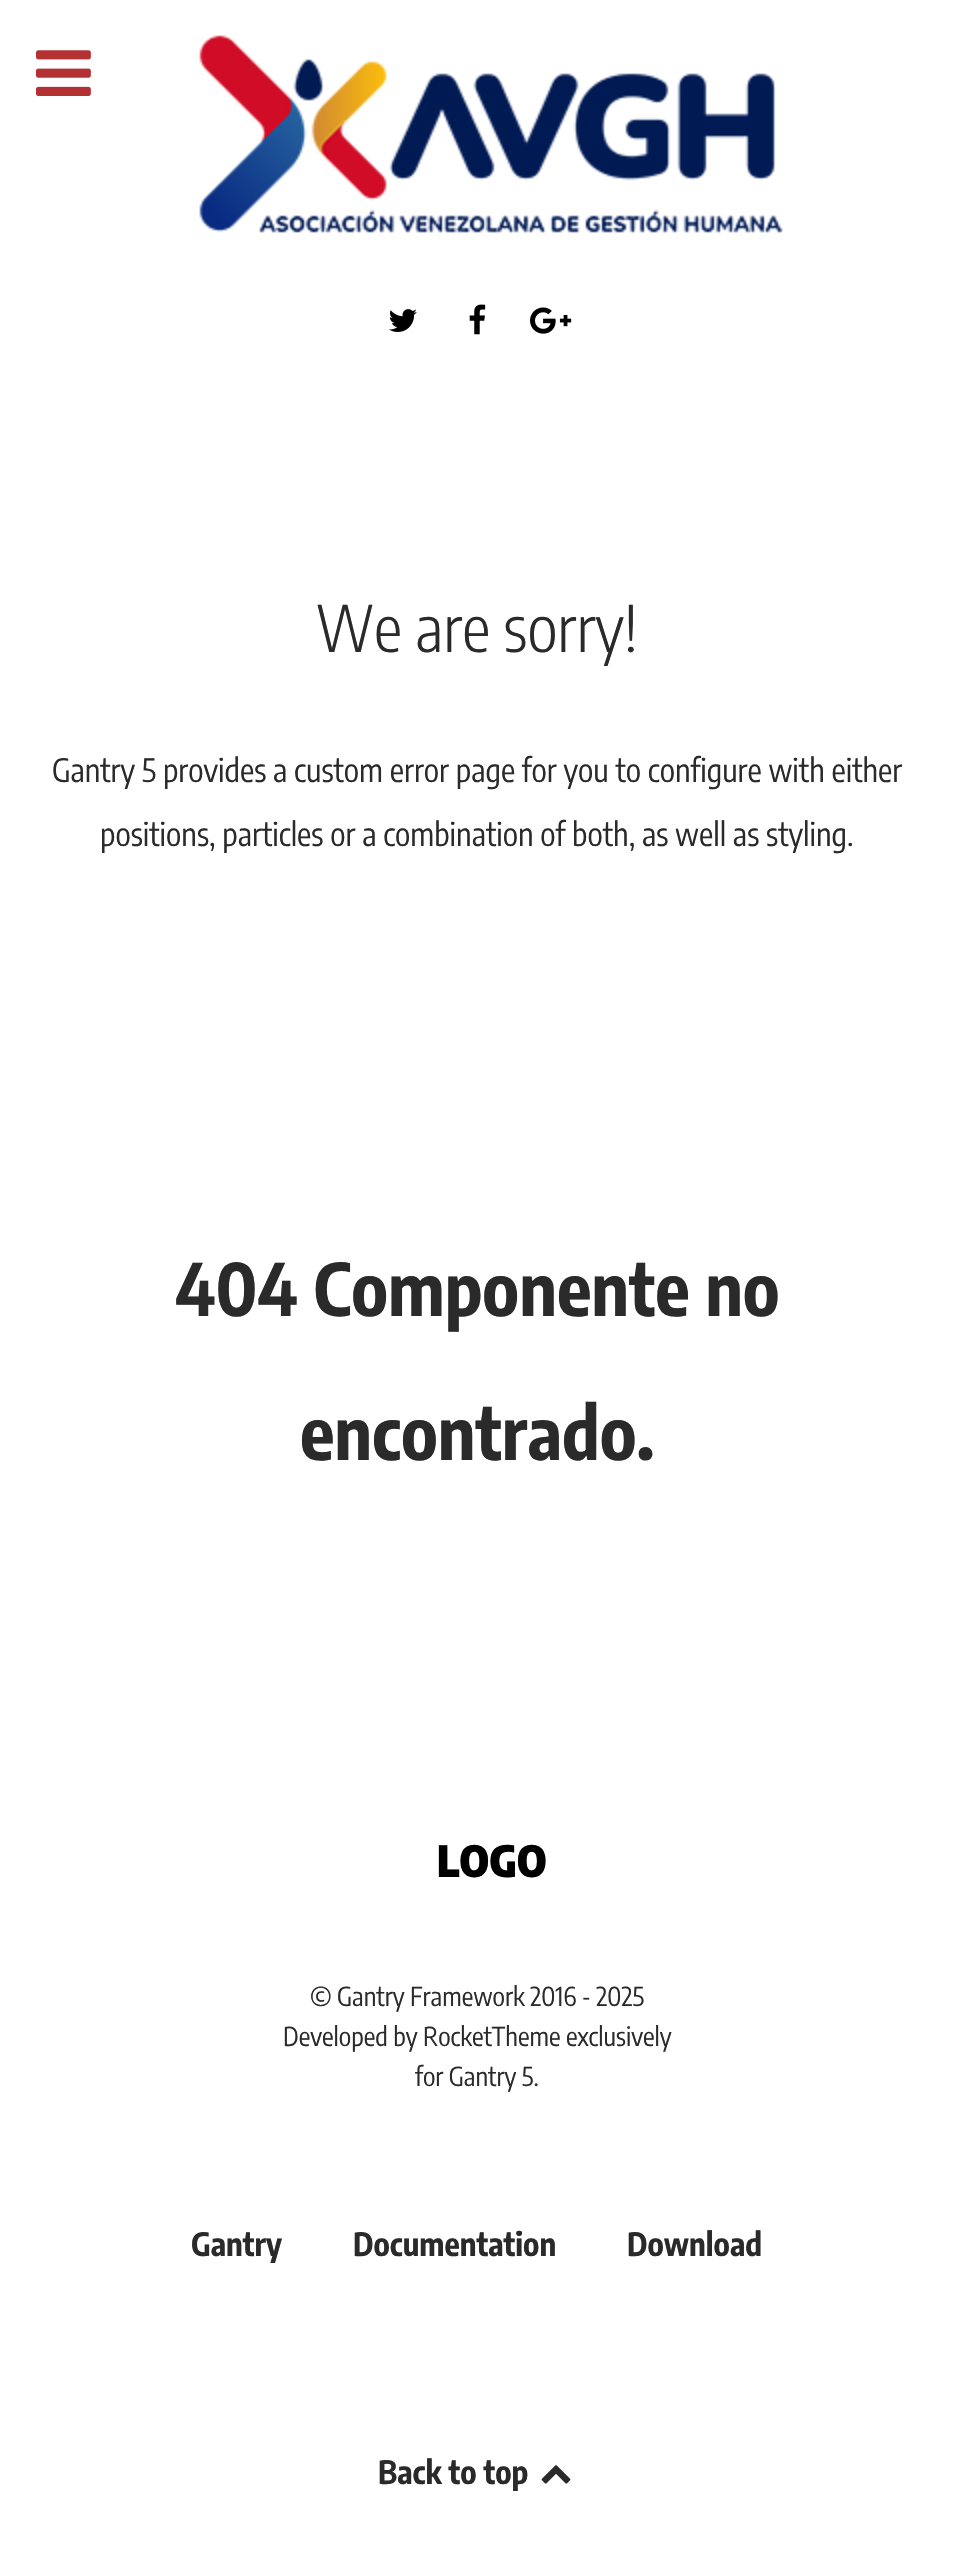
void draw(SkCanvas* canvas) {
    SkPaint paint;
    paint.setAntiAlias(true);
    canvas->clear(0xFFFFFFFF);
    canvas->drawImageRect(SkImages::DeferredFromEncodedData(SkData::MakeFromFileName("img1.png")), SkRect::MakeXYWH(36, 50, 55, 46), SkSamplingOptions());
    canvas->drawImageRect(SkImages::DeferredFromEncodedData(SkData::MakeFromFileName("img2.png")), SkRect::MakeXYWH(199, 35, 584, 198), SkSamplingOptions());
    canvas->drawImageRect(SkImages::DeferredFromEncodedData(SkData::MakeFromFileName("img3.png")), SkRect::MakeXYWH(389, 309, 28, 23), SkSamplingOptions());
    canvas->drawImageRect(SkImages::DeferredFromEncodedData(SkData::MakeFromFileName("img4.png")), SkRect::MakeXYWH(469, 304, 17, 31), SkSamplingOptions());
    canvas->drawImageRect(SkImages::DeferredFromEncodedData(SkData::MakeFromFileName("img5.png")), SkRect::MakeXYWH(530, 307, 42, 27), SkSamplingOptions());
    SkFont font1(fontMgr->matchFamilyStyle("Encode Sans Condensed", SkFontStyle(300, SkFontStyle::kNormal_Width, SkFontStyle::kUpright_Slant)), 64);
    font1.setSubpixel(true);
    paint.setColor(0xFF2A2A2A);
    canvas->drawString("We are sorry!", 316, 652, font1, paint);
    SkFont font2(fontMgr->matchFamilyStyle("Encode Sans Condensed", SkFontStyle::Normal()), 32);
    font2.setSubpixel(true);
    canvas->drawString("Gantry 5 provides a custom error page for you to configure with either", 52, 782, font2, paint);
    canvas->drawString("positions, particles or a combination of both, as well as styling.", 100, 846, font2, paint);
    SkFont font3(fontMgr->matchFamilyStyle("Encode Sans Condensed", SkFontStyle::Bold()), 72);
    font3.setSubpixel(true);
    canvas->drawString("404 Componente no", 175, 1316, font3, paint);
    canvas->drawString("encontrado.", 300, 1460, font3, paint);
    SkFont font4(fontMgr->matchFamilyStyle("Encode Sans Condensed", SkFontStyle(900, SkFontStyle::kNormal_Width, SkFontStyle::kUpright_Slant)), 43);
    font4.setSubpixel(true);
    paint.setColor(0xFF000000);
    canvas->drawString("LOGO", 437, 1877, font4, paint);
    SkFont font5(fontMgr->matchFamilyStyle("Encode Sans Condensed", SkFontStyle::Normal()), 26);
    font5.setSubpixel(true);
    paint.setColor(0xFF2A2A2A);
    canvas->drawString("© Gantry Framework 2016 - 2025", 310, 2006, font5, paint);
    canvas->drawString("Developed by RocketTheme exclusively", 283, 2046, font5, paint);
    canvas->drawString("for Gantry 5.", 415, 2086, font5, paint);
    SkFont font6(fontMgr->matchFamilyStyle("Encode Sans Condensed", SkFontStyle::Bold()), 32);
    font6.setSubpixel(true);
    canvas->drawString("Gantry", 191, 2256, font6, paint);
    canvas->drawString("Documentation", 353, 2256, font6, paint);
    canvas->drawString("Download", 627, 2256, font6, paint);
    canvas->drawString("Back to top", 378, 2484, font6, paint);
    canvas->drawImageRect(SkImages::DeferredFromEncodedData(SkData::MakeFromFileName("img6.png")), SkRect::MakeXYWH(541, 2465, 30, 19), SkSamplingOptions());
}
